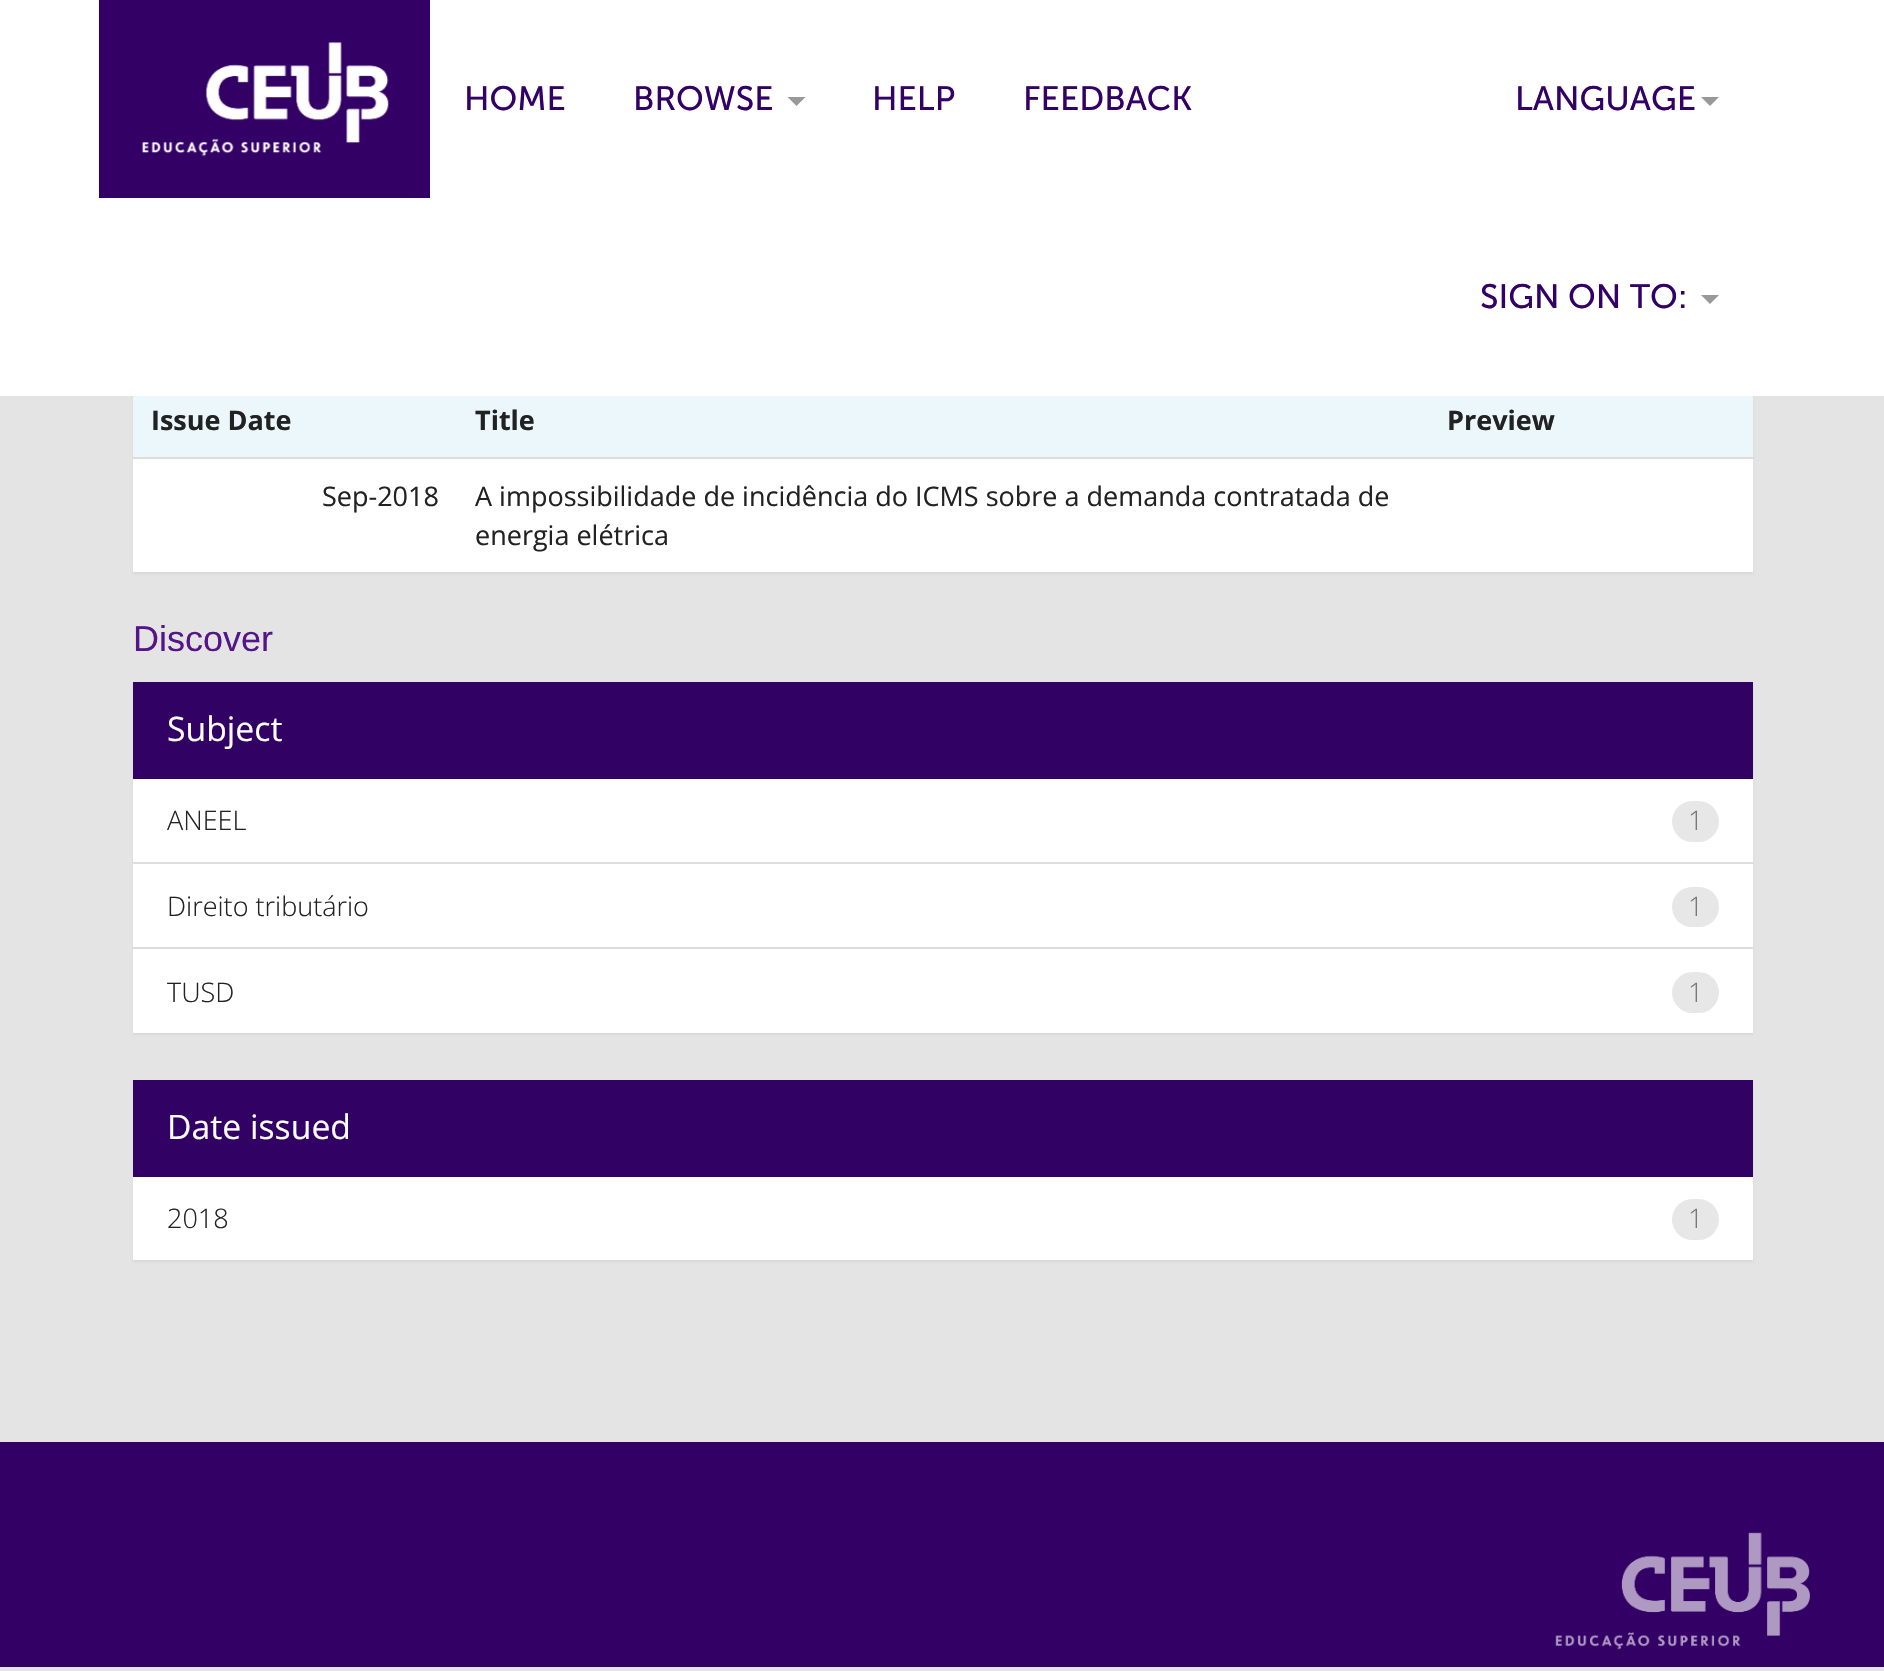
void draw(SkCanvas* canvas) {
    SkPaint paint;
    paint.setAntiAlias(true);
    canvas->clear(0xFFE4E4E4);
    paint.setColor(0x0D000000);
    paint.setMaskFilter(SkMaskFilter::MakeBlur(kNormal_SkBlurStyle, 1));
    canvas->drawRect(SkRect::MakeXYWH(133, 290, 1620, 284), paint);
    paint.setMaskFilter(nullptr);
    paint.setColor(0xFFFFFFFF);
    canvas->drawRect(SkRect::MakeXYWH(0, 0, 1884, 396), paint);
    paint.setColor(0xFF330066);
    canvas->drawRect(SkRect::MakeXYWH(99, 0, 331, 198), paint);
    canvas->drawImageRect(SkImages::DeferredFromEncodedData(SkData::MakeFromFileName("img1.png")), SkRect::MakeXYWH(141, 42, 248, 115), SkSamplingOptions());
    SkFont font1(fontMgr->matchFamilyStyle("Museo Sans", SkFontStyle::Normal()), 33.75f);
    font1.setSubpixel(true);
    canvas->drawString("HOME", 464, 110, font1, paint);
    canvas->drawString("BROWSE", 633, 110, font1, paint);
    paint.setColor(0xFF999999);
    canvas->drawPath(SkPathBuilder().moveTo(787.5f, 97).lineTo(805.5f, 97).lineTo(796.5f, 106).close().detach(), paint);
    paint.setColor(0xFF330066);
    canvas->drawString("HELP", 872, 110, font1, paint);
    canvas->drawString("FEEDBACK", 1023, 110, font1, paint);
    canvas->drawString("LANGUAGE", 1515, 110, font1, paint);
    paint.setColor(0xFF999999);
    canvas->drawPath(SkPathBuilder().moveTo(1701, 97).lineTo(1719, 97).lineTo(1710, 106).close().detach(), paint);
    paint.setColor(0xFF330066);
    canvas->drawString("SIGN ON TO:", 1480, 308, font1, paint);
    paint.setColor(0xFF999999);
    canvas->drawPath(SkPathBuilder().moveTo(1701, 295).lineTo(1719, 295).lineTo(1710, 304).close().detach(), paint);
    paint.setColor(0xFFFFFFFF);
    canvas->drawRect(SkRect::MakeXYWH(133, 459, 1620, 113), paint);
    paint.setColor(0xFFEBF7FB);
    canvas->drawRect(SkRect::MakeXYWH(133, 396, 1620, 61), paint);
    SkFont font2(fontMgr->matchFamilyStyle("Open Sans", SkFontStyle::Bold()), 27);
    font2.setSubpixel(true);
    paint.setColor(0xFF222222);
    canvas->drawString("Issue Date", 151, 430, font2, paint);
    canvas->drawString("Title", 475, 430, font2, paint);
    canvas->drawString("Preview", 1447, 430, font2, paint);
    paint.setColor(0xFFDDDDDD);
    canvas->drawRect(SkRect::MakeXYWH(133, 457, 1622, 2), paint);
    SkFont font3(fontMgr->matchFamilyStyle("Open Sans", SkFontStyle::Normal()), 27);
    font3.setSubpixel(true);
    paint.setColor(0xFF222222);
    canvas->drawString("Sep-2018", 322, 506, font3, paint);
    canvas->drawString("A impossibilidade de incidência do ICMS sobre a demanda contratada de", 475, 506, font3, paint);
    canvas->drawString("energia elétrica", 475, 545, font3, paint);
    SkFont font4(fontMgr->matchFamilyStyle("Liberation Sans", SkFontStyle::Normal()), 36);
    font4.setSubpixel(true);
    paint.setColor(0xFF56148A);
    canvas->drawString("Discover", 133, 651, font4, paint);
    paint.setColor(0x0D000000);
    paint.setMaskFilter(SkMaskFilter::MakeBlur(kNormal_SkBlurStyle, 1));
    canvas->drawRect(SkRect::MakeXYWH(133, 684, 1620, 351), paint);
    paint.setMaskFilter(nullptr);
    paint.setColor(0xFFFFFFFF);
    canvas->drawRect(SkRect::MakeXYWH(133, 779, 1620, 168), paint);
    paint.setColor(0xFF320164);
    canvas->drawRect(SkRect::MakeXYWH(133, 682, 1620, 97), paint);
    SkFont font5(fontMgr->matchFamilyStyle("Open Sans", SkFontStyle::Normal()), 33.75f);
    font5.setSubpixel(true);
    paint.setColor(0xFFFFFFFF);
    canvas->drawString("Subject", 167, 741, font5, paint);
    paint.setColor(0xFFDDDDDD);
    canvas->drawRect(SkRect::MakeXYWH(133, 862, 1620, 2), paint);
    SkFont font6(fontMgr->matchFamilyStyle("Open Sans", SkFontStyle(300, SkFontStyle::kNormal_Width, SkFontStyle::kUpright_Slant)), 27);
    font6.setSubpixel(true);
    paint.setColor(0xFF222222);
    canvas->drawString("ANEEL", 167, 830, font6, paint);
    paint.setColor(0xFFE7E7E7);
    canvas->drawRoundRect(SkRect::MakeXYWH(1672, 801, 47, 41), 20.5f, 20.5f, paint);
    paint.setColor(0xFF777777);
    canvas->drawString("1", 1688, 830, font6, paint);
    paint.setColor(0xFF222222);
    canvas->drawString("Direito tributário", 167, 916, font6, paint);
    paint.setColor(0xFFE7E7E7);
    canvas->drawRoundRect(SkRect::MakeXYWH(1672, 887, 47, 40), 20, 20, paint);
    paint.setColor(0xFF777777);
    canvas->drawString("1", 1688, 916, font6, paint);
    paint.setColor(0xFFFFFFFF);
    canvas->drawRect(SkRect::MakeXYWH(133, 949, 1620, 84), paint);
    paint.setColor(0xFFDDDDDD);
    canvas->drawRect(SkRect::MakeXYWH(133, 947, 1620, 2), paint);
    paint.setColor(0xFF222222);
    canvas->drawString("TUSD", 167, 1002, font6, paint);
    paint.setColor(0xFFE7E7E7);
    canvas->drawRoundRect(SkRect::MakeXYWH(1672, 972, 47, 41), 20.5f, 20.5f, paint);
    paint.setColor(0xFF777777);
    canvas->drawString("1", 1688, 1002, font6, paint);
    paint.setColor(0x0D000000);
    paint.setMaskFilter(SkMaskFilter::MakeBlur(kNormal_SkBlurStyle, 1));
    canvas->drawRect(SkRect::MakeXYWH(133, 1082, 1620, 180), paint);
    paint.setMaskFilter(nullptr);
    paint.setColor(0xFFFFFFFF);
    canvas->drawRect(SkRect::MakeXYWH(133, 1177, 1620, 83), paint);
    paint.setColor(0xFF320164);
    canvas->drawRect(SkRect::MakeXYWH(133, 1080, 1620, 97), paint);
    paint.setColor(0xFFFFFFFF);
    canvas->drawString("Date issued", 167, 1139, font5, paint);
    paint.setColor(0xFF222222);
    canvas->drawString("2018", 167, 1228, font6, paint);
    paint.setColor(0xFFE7E7E7);
    canvas->drawRoundRect(SkRect::MakeXYWH(1672, 1199, 47, 41), 20.5f, 20.5f, paint);
    paint.setColor(0xFF777777);
    canvas->drawString("1", 1688, 1228, font6, paint);
    paint.setColor(0xFF330066);
    canvas->drawRect(SkRect::MakeXYWH(0, 1442, 1884, 225), paint);
    canvas->drawImageRect(SkImages::DeferredFromEncodedData(SkData::MakeFromFileName("img2.png")), SkRect::MakeXYWH(1555, 1532, 255, 118), SkSamplingOptions());
}
